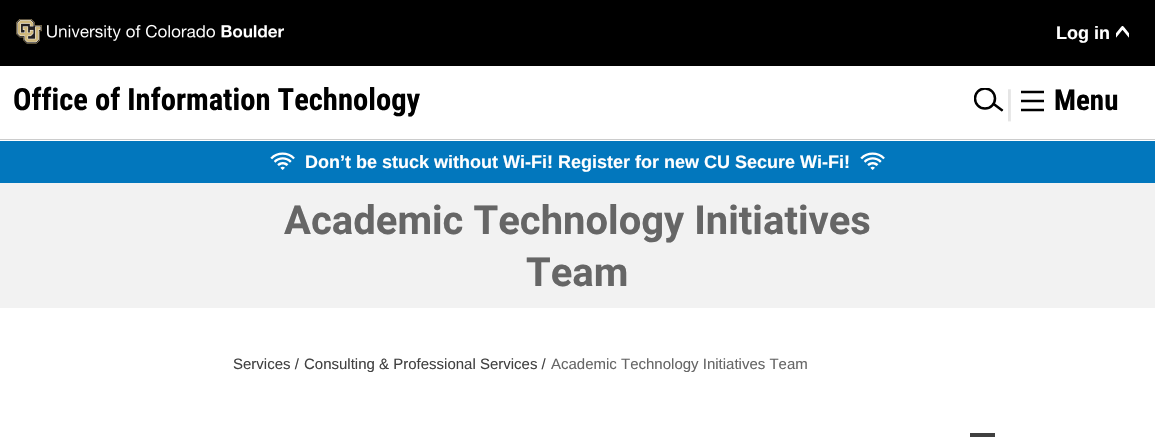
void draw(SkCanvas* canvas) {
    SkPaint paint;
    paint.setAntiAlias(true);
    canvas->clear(0xFFFFFFFF);
    paint.setColor(0xFF000000);
    canvas->drawRect(SkRect::MakeXYWH(0, 0, 1155, 66), paint);
    canvas->drawImageRect(SkImages::DeferredFromEncodedData(SkData::MakeFromFileName("img1.png")), SkRect::MakeXYWH(16, 19, 268, 25), SkSamplingOptions());
    SkFont font1(fontMgr->matchFamilyStyle("Liberation Sans", SkFontStyle::Bold()), 18);
    font1.setSubpixel(true);
    paint.setColor(0xFFFFFFFF);
    canvas->drawString("Log in", 1056, 39, font1, paint);
    canvas->save();
    canvas->clipRect(SkRect::MakeXYWH(1116, 26, 13, 13));
    paint.setStyle(SkPaint::kStroke_Style);
    paint.setStrokeWidth(2.8f);
    paint.setStrokeCap(SkPaint::kRound_Cap);
    canvas->drawPath(SkPathBuilder().moveTo(1122.5f, 27.5f).lineTo(1140.5f, 49.5f).moveTo(1122.5f, 27.5f).lineTo(1104.5f, 49.5f).detach(), paint);
    canvas->restore();
    paint.setStyle(SkPaint::kFill_Style);
    paint.setColor(0xFFCCCCCC);
    canvas->drawRect(SkRect::MakeXYWH(0, 139, 1155, 1), paint);
    SkFont font2(fontMgr->matchFamilyStyle("Roboto Condensed", SkFontStyle::Bold()), 30.6f);
    font2.setSubpixel(true);
    paint.setColor(0xFF000000);
    canvas->drawString("Office of Information Technology", 13, 110, font2, paint);
    canvas->save();
    canvas->clipPath(SkPathBuilder().moveTo(980, 88).lineTo(998, 88).cubicTo(1001.5f, 88, 1004, 90.5f, 1004, 94).lineTo(1004, 107).cubicTo(1004, 110.5f, 1001.5f, 113, 998, 113).lineTo(980, 113).cubicTo(976.5f, 113, 974, 110.5f, 974, 107).lineTo(974, 94).cubicTo(974, 90.5f, 976.5f, 88, 980, 88).close().detach(), true);
    paint.setStyle(SkPaint::kStroke_Style);
    paint.setStrokeWidth(2.5f);
    paint.setStrokeCap(SkPaint::kButt_Cap);
    canvas->drawCircle(985, 98.5f, 10, paint);
    canvas->drawPath(SkPathBuilder().moveTo(993, 103.5f).lineTo(1003, 111).detach(), paint);
    canvas->restore();
    SkFont font3(fontMgr->matchFamilyStyle("Liberation Sans", SkFontStyle::Normal()), 34);
    font3.setSubpixel(true);
    paint.setStyle(SkPaint::kFill_Style);
    paint.setColor(0xFFE5E5E5);
    canvas->drawString("|", 1005, 114, font3, paint);
    SkFont font4(fontMgr->matchFamilyStyle("Roboto Condensed", SkFontStyle::Bold()), 29);
    font4.setSubpixel(true);
    paint.setColor(0xFF000000);
    canvas->drawString("Menu", 1054, 110, font4, paint);
    paint.setStyle(SkPaint::kStroke_Style);
    canvas->drawPath(SkPathBuilder().moveTo(1021, 92).lineTo(1044, 92).moveTo(1021, 101).lineTo(1044, 101).moveTo(1021, 110).lineTo(1044, 110).detach(), paint);
    paint.setStyle(SkPaint::kFill_Style);
    paint.setColor(0xFF0277BD);
    canvas->drawRect(SkRect::MakeXYWH(0, 141, 1155, 42), paint);
    canvas->drawImageRect(SkImages::DeferredFromEncodedData(SkData::MakeFromFileName("img2.png")), SkRect::MakeXYWH(270, 152, 25, 18), SkSamplingOptions());
    paint.setColor(0xFFFFFFFF);
    canvas->drawString("Don’t be stuck without Wi-Fi! Register for new CU Secure Wi-Fi!", 305, 168, font1, paint);
    canvas->drawImageRect(SkImages::DeferredFromEncodedData(SkData::MakeFromFileName("img2.png")), SkRect::MakeXYWH(860, 152, 25, 18), SkSamplingOptions());
    paint.setColor(0xFFF2F2F2);
    canvas->drawRect(SkRect::MakeXYWH(0, 183, 1155, 125), paint);
    SkFont font5(fontMgr->matchFamilyStyle("Roboto", SkFontStyle::Bold()), 40);
    font5.setSubpixel(true);
    paint.setColor(0xFF666666);
    canvas->drawString("Academic Technology Initiatives", 284, 234, font5, paint);
    canvas->drawString("Team", 526, 286, font5, paint);
    SkFont font6(fontMgr->matchFamilyStyle("Liberation Sans", SkFontStyle::Normal()), 15);
    font6.setSubpixel(true);
    paint.setColor(0xFF424242);
    canvas->drawString("Services /", 233, 369, font6, paint);
    canvas->drawString("Consulting & Professional Services /", 304, 369, font6, paint);
    paint.setColor(0xFF666666);
    canvas->drawString("Academic Technology Initiatives Team", 551, 369, font6, paint);
    paint.setColor(0xFF404040);
    canvas->drawRect(SkRect::MakeXYWH(970, 433, 25, 4), paint);
}
